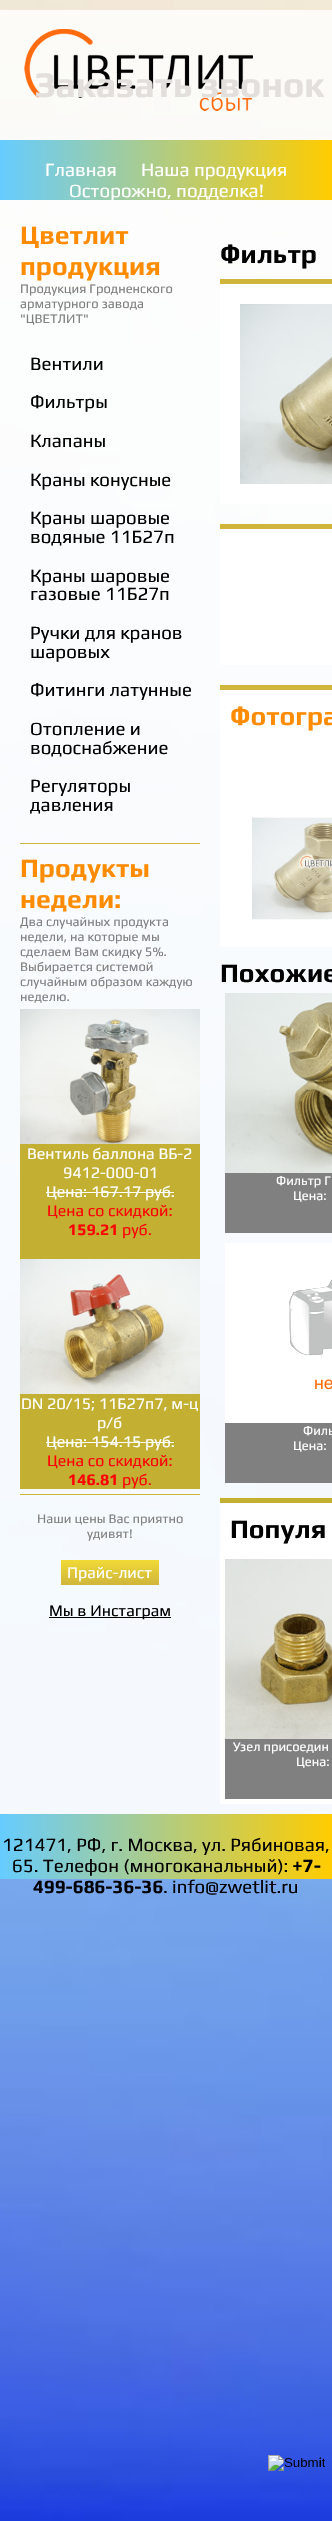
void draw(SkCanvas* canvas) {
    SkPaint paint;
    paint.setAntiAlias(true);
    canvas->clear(0xFFFFFFFF);
    canvas->drawImageRect(SkImages::DeferredFromEncodedData(SkData::MakeFromFileName("img1.png")), SkRect::MakeXYWH(0, 0, 332, 2521), SkSamplingOptions());
    paint.setColor(0xCCFFFFFF);
    canvas->drawRect(SkRect::MakeXYWH(0, 10, 270, 130), paint);
    canvas->drawImageRect(SkImages::DeferredFromEncodedData(SkData::MakeFromFileName("img2.png")), SkRect::MakeXYWH(24, 29, 229, 82), SkSamplingOptions());
    canvas->drawRect(SkRect::MakeXYWH(270, 10, 62, 130), paint);
    SkFont font1(fontMgr->matchFamilyStyle("Play", SkFontStyle::Bold()), 36);
    font1.setSubpixel(true);
    paint.setColor(0xFFE2DFDC);
    canvas->drawString("Заказать звонок", 35, 97, font1, paint);
    {
        const SkColor colors[] = {0xFFFFCC00, 0xFF66CCFF};
        const float stops[] = {0, 1};
        const SkPoint ends[] = {{332, 170}, {0, 170}};
        paint.setShader(SkGradientShader::MakeLinear(ends, colors, stops, 2, SkTileMode::kClamp));
        paint.setAlpha(255);
    }
    canvas->drawRect(SkRect::MakeXYWH(0, 140, 332, 60), paint);
    SkFont font2(fontMgr->matchFamilyStyle("Play", SkFontStyle::Normal()), 18.7f);
    font2.setSubpixel(true);
    paint.setShader(nullptr);
    paint.setColor(0xFFFFFFFF);
    canvas->drawString("Главная", 45, 176, font2, paint);
    canvas->drawString("Наша продукция", 141, 176, font2, paint);
    canvas->drawString("Осторожно, подделка!", 69, 197, font2, paint);
    paint.setColor(0x99FFFFFF);
    canvas->drawRect(SkRect::MakeXYWH(0, 200, 332, 1614), paint);
    paint.setColor(0xCCFFFFFF);
    canvas->drawRect(SkRect::MakeXYWH(0, 200, 332, 1614), paint);
    SkFont font3(fontMgr->matchFamilyStyle("Play", SkFontStyle::Bold()), 26.5f);
    font3.setSubpixel(true);
    paint.setColor(0xFFFF8C00);
    canvas->drawString("Цветлит", 20, 244, font3, paint);
    canvas->drawString("продукция", 20, 275, font3, paint);
    SkFont font4(fontMgr->matchFamilyStyle("Play", SkFontStyle::Normal()), 13);
    font4.setSubpixel(true);
    paint.setColor(0xFF808080);
    canvas->drawString("Продукция Гродненского", 20, 293, font4, paint);
    canvas->drawString("арматурного завода", 20, 308, font4, paint);
    canvas->drawString("\"ЦВЕТЛИТ\"", 20, 323, font4, paint);
    paint.setColor(0xFF000000);
    canvas->drawString("Вентили", 30, 370, font2, paint);
    canvas->drawString("Фильтры", 30, 408, font2, paint);
    canvas->drawString("Клапаны", 30, 447, font2, paint);
    canvas->drawString("Краны конусные", 30, 486, font2, paint);
    canvas->drawString("Краны шаровые", 30, 524, font2, paint);
    canvas->drawString("водяные 11Б27п", 30, 543, font2, paint);
    canvas->drawString("Краны шаровые", 30, 582, font2, paint);
    canvas->drawString("газовые 11Б27п", 30, 600, font2, paint);
    canvas->drawString("Ручки для кранов", 30, 639, font2, paint);
    canvas->drawString("шаровых", 30, 658, font2, paint);
    canvas->drawString("Фитинги латунные", 30, 696, font2, paint);
    canvas->drawString("Отопление и", 30, 735, font2, paint);
    canvas->drawString("водоснабжение", 30, 754, font2, paint);
    canvas->drawString("Регуляторы", 30, 792, font2, paint);
    canvas->drawString("давления", 30, 811, font2, paint);
    paint.setColor(0xFFCFB53B);
    canvas->drawRect(SkRect::MakeXYWH(20, 843, 180, 1), paint);
    paint.setColor(0xFFFF8C00);
    canvas->drawString("Продукты", 20, 877, font3, paint);
    canvas->drawString("недели:", 20, 908, font3, paint);
    paint.setColor(0xFF808080);
    canvas->drawString("Два случайных продукта", 20, 926, font4, paint);
    canvas->drawString("недели, на которые мы", 20, 941, font4, paint);
    canvas->drawString("сделаем Вам скидку 5%.", 20, 956, font4, paint);
    canvas->drawString("Выбирается системой", 20, 971, font4, paint);
    canvas->drawString("случайным образом каждую", 20, 986, font4, paint);
    canvas->drawString("неделю.", 20, 1001, font4, paint);
    paint.setColor(0xFFC3B033);
    canvas->drawRect(SkRect::MakeXYWH(20, 1144, 180, 345), paint);
    canvas->drawImageRect(SkImages::DeferredFromEncodedData(SkData::MakeFromFileName("img3.png")), SkRect::MakeXYWH(20, 1009, 180, 135), SkSamplingOptions());
    SkFont font5(fontMgr->matchFamilyStyle("Play", SkFontStyle::Normal()), 16);
    font5.setSubpixel(true);
    paint.setColor(0xFFFFFFFF);
    canvas->drawString("Вентиль баллона ВБ-2", 27, 1159, font5, paint);
    canvas->drawString("9412-000-01", 63, 1178, font5, paint);
    canvas->drawString("Цена: 167.17 руб.", 46, 1197, font5, paint);
    canvas->drawRect(SkRect::MakeXYWH(46, 1192, 128, 1), paint);
    paint.setColor(0xFFFF0000);
    canvas->drawString("Цена со скидкой:", 47, 1216, font5, paint);
    SkFont font6(fontMgr->matchFamilyStyle("Play", SkFontStyle::Bold()), 16);
    font6.setSubpixel(true);
    canvas->drawString("159.21", 68, 1235, font6, paint);
    canvas->drawString("руб.", 122, 1235, font5, paint);
    canvas->drawImageRect(SkImages::DeferredFromEncodedData(SkData::MakeFromFileName("img4.png")), SkRect::MakeXYWH(20, 1259, 180, 135), SkSamplingOptions());
    paint.setColor(0xFFFFFFFF);
    canvas->drawString("DN 20/15; 11Б27п7, м-ц", 21, 1409, font5, paint);
    canvas->drawString("р/б", 97, 1428, font5, paint);
    canvas->drawString("Цена: 154.15 руб.", 46, 1447, font5, paint);
    canvas->drawRect(SkRect::MakeXYWH(46, 1442, 128, 1), paint);
    paint.setColor(0xFFFF0000);
    canvas->drawString("Цена со скидкой:", 47, 1466, font5, paint);
    canvas->drawString("146.81", 68, 1485, font6, paint);
    canvas->drawString("руб.", 122, 1485, font5, paint);
    paint.setColor(0xFFCFB53B);
    canvas->drawRect(SkRect::MakeXYWH(20, 1494, 180, 1), paint);
    paint.setColor(0xFF808080);
    canvas->drawString("Наши цены Вас приятно", 37, 1523, font4, paint);
    canvas->drawString("удивят!", 87, 1538, font4, paint);
    {
        const SkColor colors[] = {0xFFCFB53B, 0xFFF1DA36};
        const float stops[] = {0, 1};
        const SkPoint ends[] = {{110, 1585}, {110, 1560}};
        paint.setShader(SkGradientShader::MakeLinear(ends, colors, stops, 2, SkTileMode::kClamp));
        paint.setAlpha(255);
    }
    canvas->drawRect(SkRect::MakeXYWH(61, 1560, 98, 25), paint);
    paint.setShader(nullptr);
    paint.setColor(0xFFFFFFFF);
    canvas->drawString("Прайс-лист", 67, 1578, font5, paint);
    paint.setColor(0xFF000000);
    canvas->drawRect(SkRect::MakeXYWH(49, 1617, 122, 1), paint);
    canvas->drawString("Мы в Инстаграм", 49, 1616, font5, paint);
    canvas->drawString("Фильтр", 220, 263, font3, paint);
    paint.setColor(0xFFFFFFFF);
    canvas->drawRect(SkRect::MakeXYWH(220, 284, 112, 220), paint);
    paint.setColor(0xFFCFB53B);
    canvas->drawRect(SkRect::MakeXYWH(220, 279, 112, 5), paint);
    canvas->drawImageRect(SkImages::DeferredFromEncodedData(SkData::MakeFromFileName("img5.png")), SkRect::MakeXYWH(240, 304, 92, 180), SkSamplingOptions());
    paint.setColor(0xFFFFFFFF);
    canvas->drawRect(SkRect::MakeXYWH(220, 529, 112, 136), paint);
    paint.setColor(0xFFCFB53B);
    canvas->drawRect(SkRect::MakeXYWH(220, 524, 112, 5), paint);
    paint.setColor(0xFFFFFFFF);
    canvas->drawRect(SkRect::MakeXYWH(220, 690, 112, 257), paint);
    paint.setColor(0xFFCFB53B);
    canvas->drawRect(SkRect::MakeXYWH(220, 685, 112, 5), paint);
    paint.setColor(0xFFFF8C00);
    canvas->drawString("Фотогра", 230, 725, font3, paint);
    canvas->drawImageRect(SkImages::DeferredFromEncodedData(SkData::MakeFromFileName("img6.png")), SkRect::MakeXYWH(252, 817, 80, 103), SkSamplingOptions());
    paint.setColor(0xFF000000);
    canvas->drawString("Похожие", 220, 982, font3, paint);
    paint.setColor(0xFF808080);
    canvas->drawRect(SkRect::MakeXYWH(225, 1173, 107, 60), paint);
    canvas->drawImageRect(SkImages::DeferredFromEncodedData(SkData::MakeFromFileName("img7.png")), SkRect::MakeXYWH(225, 993, 107, 180), SkSamplingOptions());
    paint.setColor(0xFFFFFFFF);
    canvas->drawString("Фильтр Г", 276, 1185, font4, paint);
    canvas->drawString("Цена:", 293, 1200, font4, paint);
    paint.setColor(0xFF808080);
    canvas->drawRect(SkRect::MakeXYWH(225, 1423, 107, 60), paint);
    canvas->drawImageRect(SkImages::DeferredFromEncodedData(SkData::MakeFromFileName("img8.png")), SkRect::MakeXYWH(225, 1243, 107, 180), SkSamplingOptions());
    paint.setColor(0xFFFFFFFF);
    canvas->drawString("Филь", 303, 1435, font4, paint);
    canvas->drawString("Цена:", 293, 1450, font4, paint);
    canvas->drawRect(SkRect::MakeXYWH(220, 1503, 112, 301), paint);
    paint.setColor(0xFFC3B033);
    canvas->drawRect(SkRect::MakeXYWH(220, 1498, 112, 5), paint);
    paint.setColor(0xFF000000);
    canvas->drawString("Популя", 230, 1538, font3, paint);
    paint.setColor(0xFF808080);
    canvas->drawRect(SkRect::MakeXYWH(225, 1739, 107, 60), paint);
    canvas->drawImageRect(SkImages::DeferredFromEncodedData(SkData::MakeFromFileName("img9.png")), SkRect::MakeXYWH(225, 1559, 107, 180), SkSamplingOptions());
    paint.setColor(0xFFFFFFFF);
    canvas->drawString("Узел присоедин", 233, 1751, font4, paint);
    canvas->drawString("Цена:", 296, 1766, font4, paint);
    {
        const SkColor colors[] = {0xFFFFCC00, 0xFF66CCFF};
        const float stops[] = {0, 1};
        const SkPoint ends[] = {{332, 1847}, {0, 1847}};
        paint.setShader(SkGradientShader::MakeLinear(ends, colors, stops, 2, SkTileMode::kClamp));
        paint.setAlpha(255);
    }
    canvas->drawRect(SkRect::MakeXYWH(0, 1814, 332, 65), paint);
    paint.setShader(nullptr);
    paint.setColor(0xFF000000);
    canvas->drawString("121471, РФ, г. Москва, ул. Рябиновая,", 2, 1851, font2, paint);
    canvas->drawString("65. Телефон (многоканальный):", 12, 1872, font2, paint);
    SkFont font7(fontMgr->matchFamilyStyle("Play", SkFontStyle::Bold()), 18.7f);
    font7.setSubpixel(true);
    canvas->drawString("+7-", 292, 1872, font7, paint);
    canvas->drawString("499-686-36-36", 33, 1893, font7, paint);
    canvas->drawString(". info@zwetlit.ru", 163, 1893, font2, paint);
    canvas->drawImageRect(SkImages::DeferredFromEncodedData(SkData::MakeFromFileName("img10.png")), SkRect::MakeXYWH(268, 2455, 57, 16), SkSamplingOptions());
    SkFont font8(fontMgr->matchFamilyStyle("Liberation Sans", SkFontStyle::Normal()), 13);
    font8.setSubpixel(true);
    canvas->drawString("i", 319, 2467, font8, paint);
}
